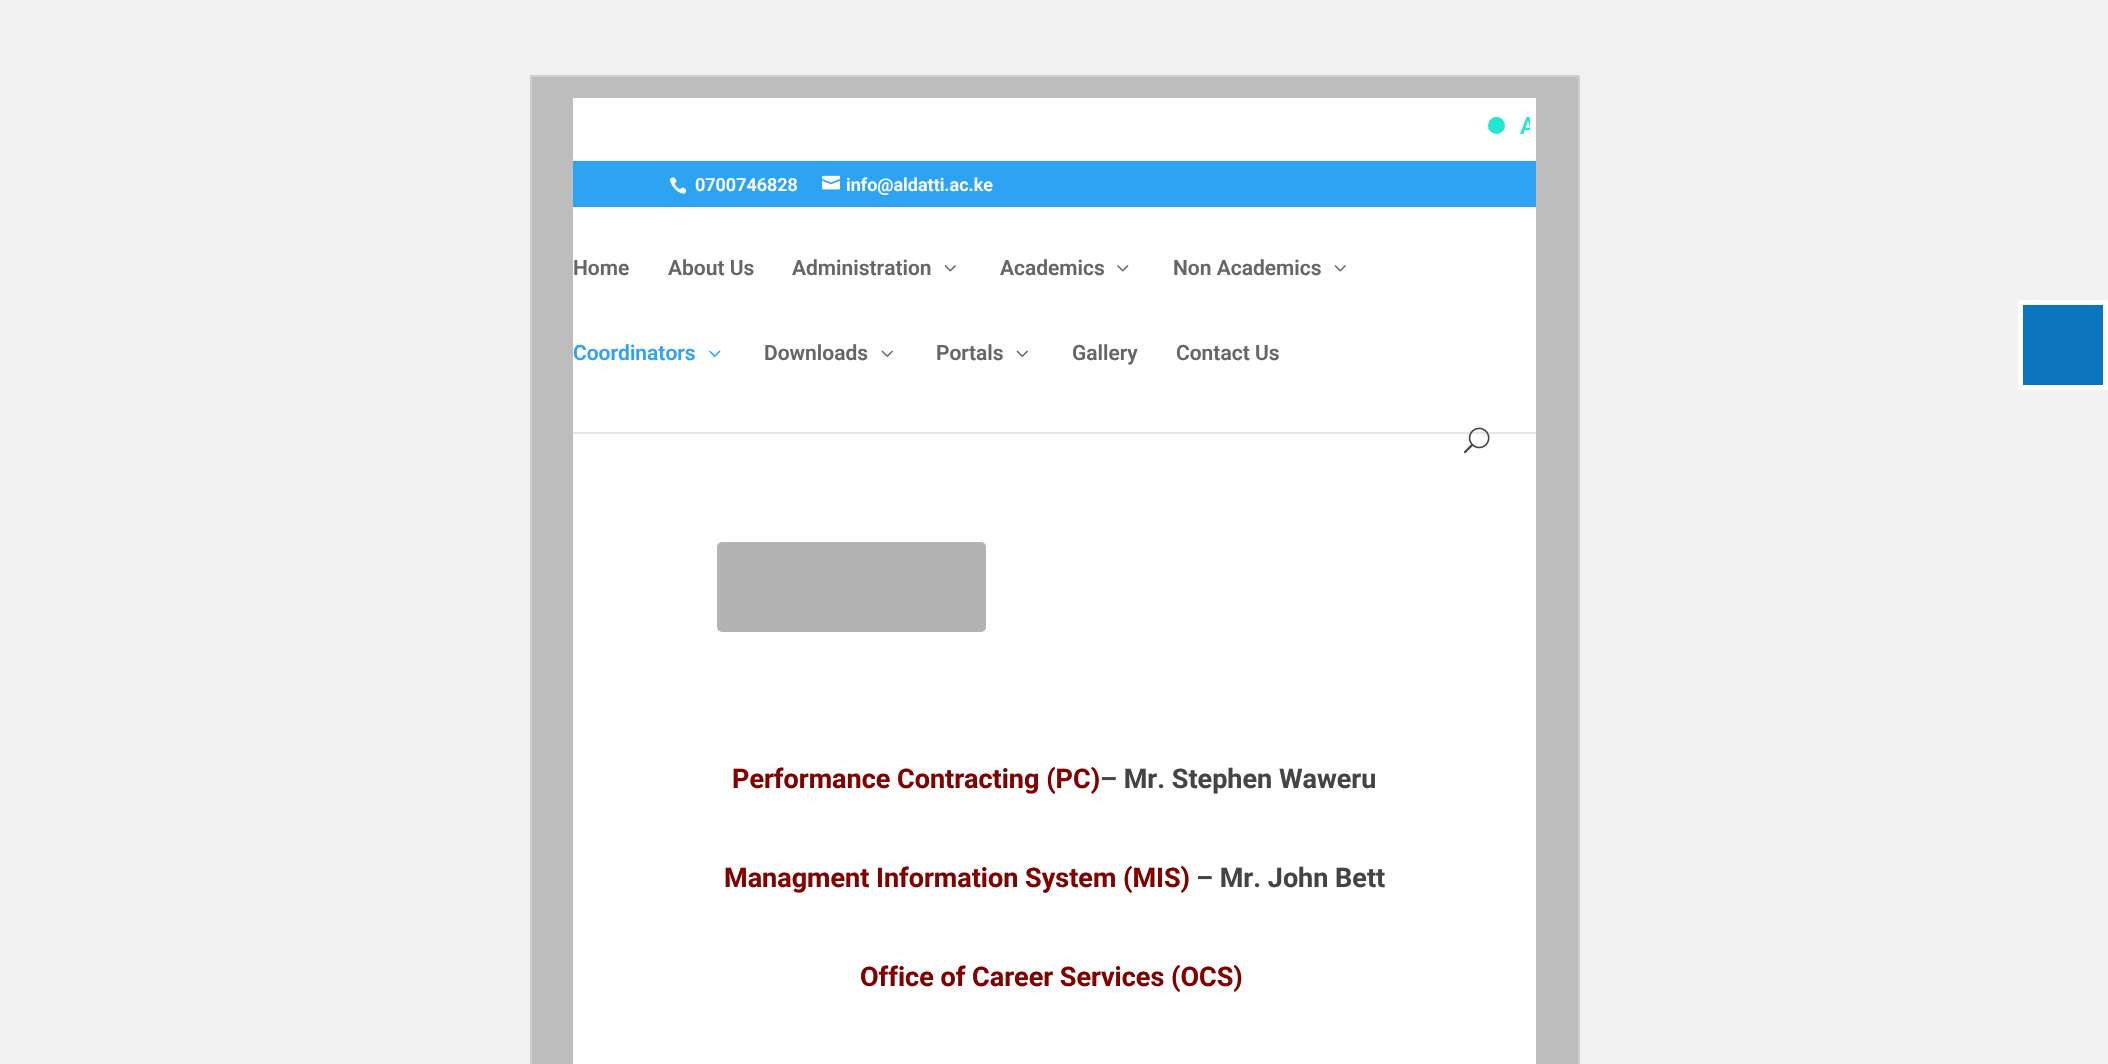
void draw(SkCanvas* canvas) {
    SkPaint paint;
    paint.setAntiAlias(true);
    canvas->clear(0xFFF1F1F1);
    paint.setColor(0xFFBDBDBD);
    canvas->drawRect(SkRect::MakeXYWH(531, 76, 1048, 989), paint);
    paint.setStyle(SkPaint::kStroke_Style);
    paint.setStrokeWidth(2);
    paint.setColor(0xFFCCD0D4);
    canvas->drawRect(SkRect::MakeXYWH(531, 76, 1048, 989), paint);
    paint.setStyle(SkPaint::kFill_Style);
    paint.setColor(0xFFFFFFFF);
    canvas->drawRect(SkRect::MakeXYWH(573, 98, 963, 63), paint);
    paint.setColor(0xFF24E5CF);
    canvas->drawCircle(1496.5f, 125.5f, 8.5f, paint);
    canvas->save();
    canvas->clipRect(SkRect::MakeXYWH(579, 108, 951, 38));
    SkFont font1(fontMgr->matchFamilyStyle("Roboto", SkFontStyle(500, SkFontStyle::kNormal_Width, SkFontStyle::kUpright_Slant)), 24);
    font1.setSubpixel(true);
    canvas->drawString("A", 1520, 134, font1, paint);
    canvas->restore();
    paint.setColor(0xFF2EA3F2);
    canvas->drawRect(SkRect::MakeXYWH(573, 161, 963, 46), paint);
    canvas->drawImageRect(SkImages::DeferredFromEncodedData(SkData::MakeFromFileName("img1.png")), SkRect::MakeXYWH(669, 177, 18, 17), SkSamplingOptions());
    SkFont font2(fontMgr->matchFamilyStyle("Roboto", SkFontStyle(600, SkFontStyle::kNormal_Width, SkFontStyle::kUpright_Slant)), 18);
    font2.setSubpixel(true);
    paint.setColor(0xFFFFFFFF);
    canvas->drawString("0700746828", 695, 191, font2, paint);
    canvas->drawImageRect(SkImages::DeferredFromEncodedData(SkData::MakeFromFileName("img2.png")), SkRect::MakeXYWH(822, 175, 18, 15), SkSamplingOptions());
    canvas->drawString("info@aldatti.ac.ke", 846, 191, font2, paint);
    paint.setColor(0xFFE6E6E6);
    canvas->drawRect(SkRect::MakeXYWH(573, 432, 963, 2), paint);
    paint.setColor(0xFFFFFFFF);
    canvas->drawRect(SkRect::MakeXYWH(573, 207, 963, 225), paint);
    SkFont font3(fontMgr->matchFamilyStyle("Roboto", SkFontStyle(600, SkFontStyle::kNormal_Width, SkFontStyle::kUpright_Slant)), 21);
    font3.setSubpixel(true);
    paint.setColor(0xFF666666);
    canvas->drawString("Home", 573, 275, font3, paint);
    canvas->drawString("About Us", 668, 275, font3, paint);
    canvas->drawString("Administration", 792, 275, font3, paint);
    canvas->drawImageRect(SkImages::DeferredFromEncodedData(SkData::MakeFromFileName("img3.png")), SkRect::MakeXYWH(944, 265, 12, 7), SkSamplingOptions());
    canvas->drawString("Academics", 1000, 275, font3, paint);
    canvas->drawImageRect(SkImages::DeferredFromEncodedData(SkData::MakeFromFileName("img4.png")), SkRect::MakeXYWH(1117, 265, 12, 7), SkSamplingOptions());
    canvas->drawString("Non Academics", 1173, 275, font3, paint);
    canvas->drawImageRect(SkImages::DeferredFromEncodedData(SkData::MakeFromFileName("img3.png")), SkRect::MakeXYWH(1334, 265, 12, 7), SkSamplingOptions());
    paint.setColor(0xFF2EA3F2);
    canvas->drawString("Coordinators", 573, 360, font3, paint);
    canvas->drawImageRect(SkImages::DeferredFromEncodedData(SkData::MakeFromFileName("img5.png")), SkRect::MakeXYWH(709, 350, 12, 7), SkSamplingOptions());
    paint.setColor(0xFF666666);
    canvas->drawString("Downloads", 764, 360, font3, paint);
    canvas->drawImageRect(SkImages::DeferredFromEncodedData(SkData::MakeFromFileName("img6.png")), SkRect::MakeXYWH(881, 350, 12, 7), SkSamplingOptions());
    canvas->drawString("Portals", 936, 360, font3, paint);
    canvas->drawImageRect(SkImages::DeferredFromEncodedData(SkData::MakeFromFileName("img6.png")), SkRect::MakeXYWH(1016, 350, 12, 7), SkSamplingOptions());
    canvas->drawString("Gallery", 1072, 360, font3, paint);
    canvas->drawString("Contact Us", 1176, 360, font3, paint);
    paint.setColor(0xFFFFFFFF);
    canvas->drawRect(SkRect::MakeXYWH(573, 434, 963, 630), paint);
    canvas->drawImageRect(SkImages::DeferredFromEncodedData(SkData::MakeFromFileName("img7.png")), SkRect::MakeXYWH(1463, 427, 27, 27), SkSamplingOptions());
    paint.setColor(0xFFB3B3B3);
    canvas->drawRoundRect(SkRect::MakeXYWH(717, 542, 269, 90), 5, 5, paint);
    SkFont font4(fontMgr->matchFamilyStyle("Roboto", SkFontStyle::Bold()), 27);
    font4.setSubpixel(true);
    paint.setColor(0xFF800000);
    canvas->drawString("Performance Contracting (PC)", 732, 788, font4, paint);
    paint.setColor(0xFF444444);
    canvas->drawString("– Mr. Stephen Waweru", 1100, 788, font4, paint);
    paint.setColor(0xFF800000);
    canvas->drawString("Managment Information System (MIS)", 724, 887, font4, paint);
    paint.setColor(0xFF444444);
    canvas->drawString("– Mr. John Bett", 1196, 887, font4, paint);
    paint.setColor(0xFF800000);
    canvas->drawString("Office of Career Services (OCS)", 860, 986, font4, paint);
    paint.setColor(0xFF0A76BE);
    canvas->drawRoundRect(SkRect::MakeXYWH(2020.5f, 302.5f, 85, 85), 0.5f, 0.5f, paint);
    paint.setStyle(SkPaint::kStroke_Style);
    paint.setStrokeWidth(5);
    paint.setColor(0xFFFFFFFF);
    canvas->drawRoundRect(SkRect::MakeXYWH(2020.5f, 302.5f, 85, 85), 0.5f, 0.5f, paint);
}
